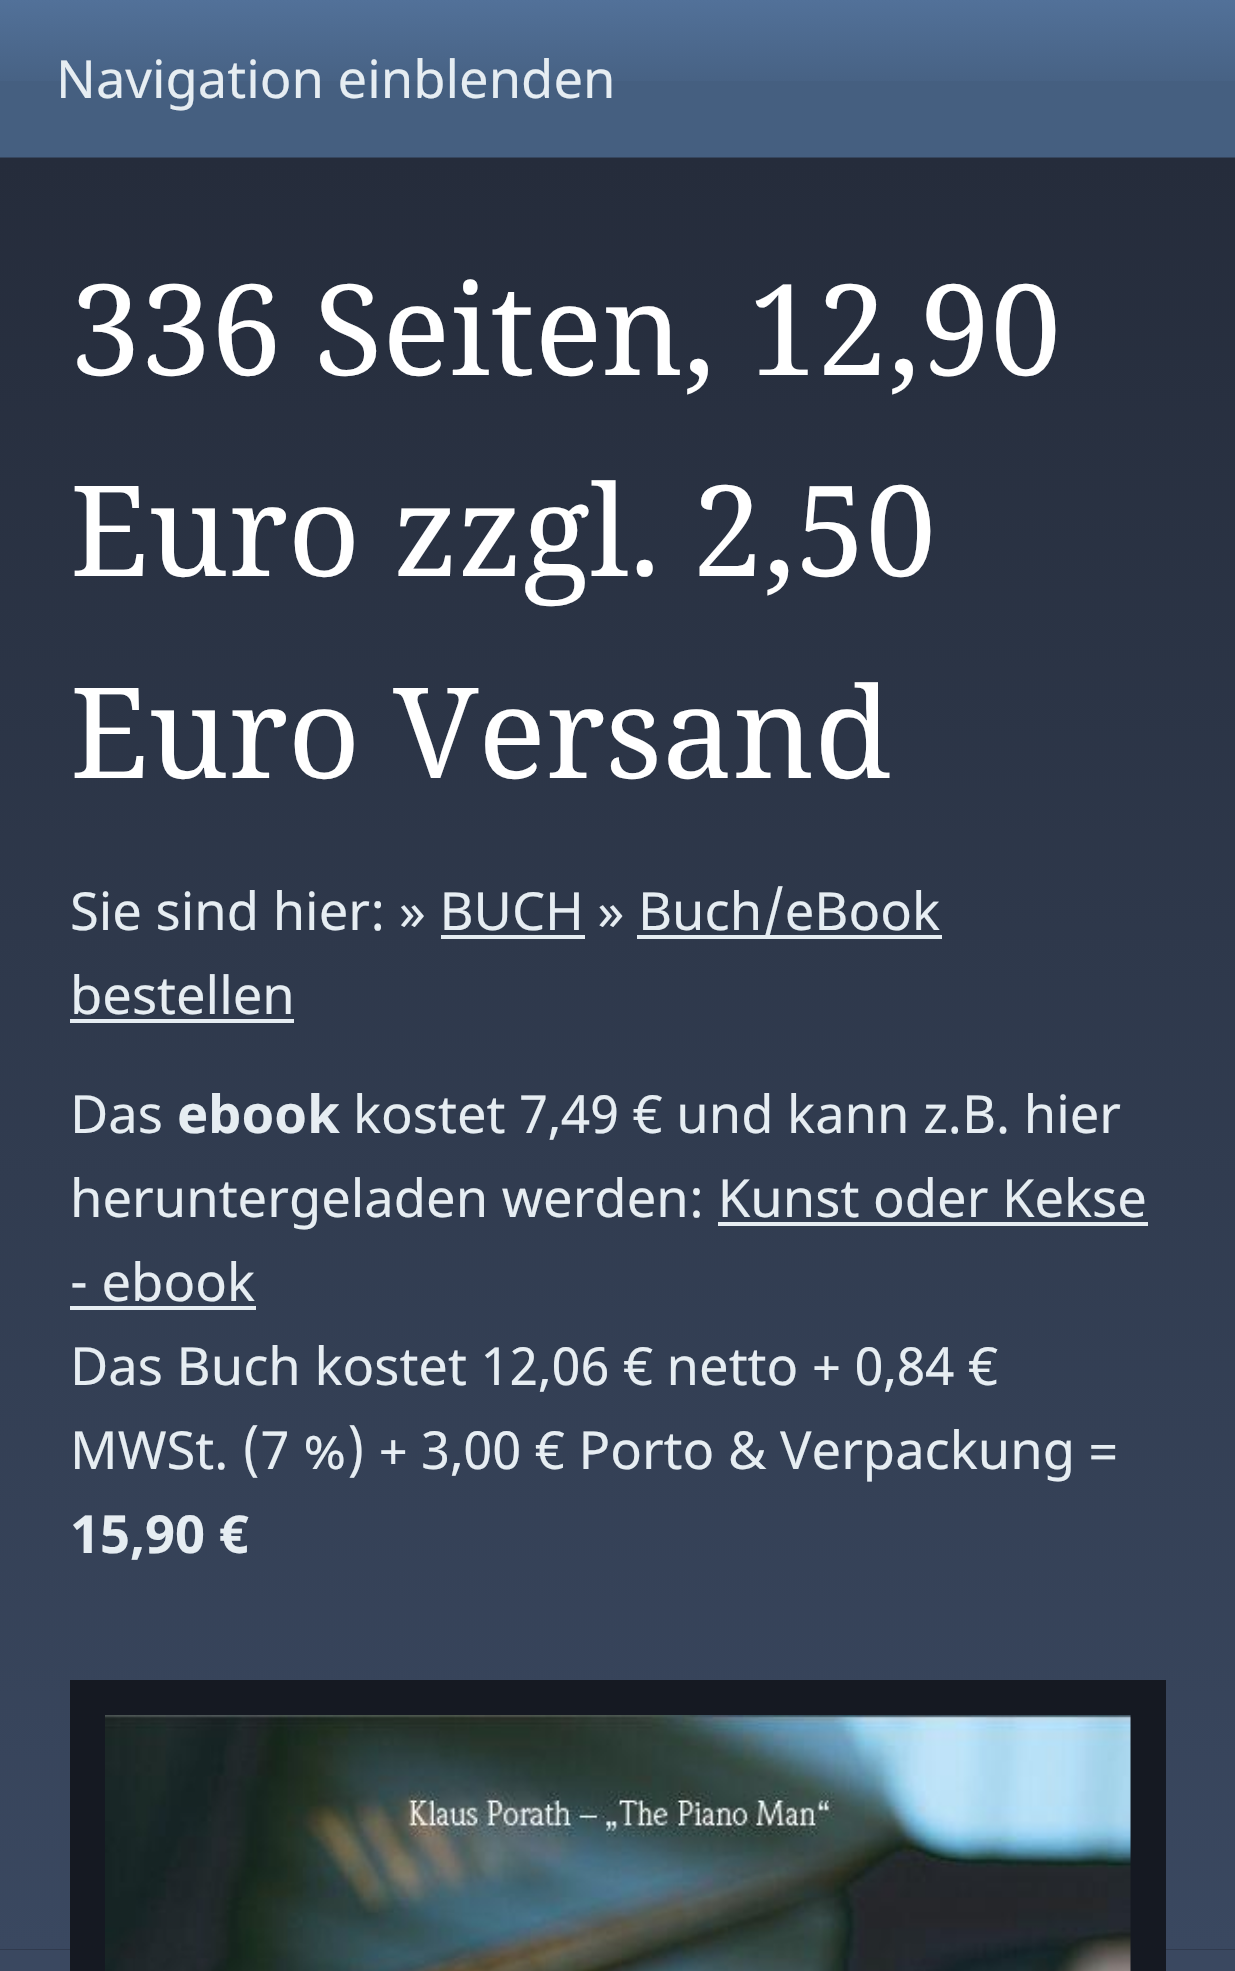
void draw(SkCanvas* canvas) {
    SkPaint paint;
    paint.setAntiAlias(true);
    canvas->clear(0xFF455F80);
    canvas->drawImageRect(SkImages::DeferredFromEncodedData(SkData::MakeFromFileName("img1.png")), SkRect::MakeXYWH(0, 0, 1235, 81), SkSamplingOptions());
    SkFont font1(fontMgr->matchFamilyStyle("Noto Sans", SkFontStyle::Normal()), 52.5f);
    font1.setSubpixel(true);
    paint.setColor(0xFFE6EDF2);
    canvas->drawString("Navigation einblenden", 56, 98, font1, paint);
    paint.setColor(0xFF3A4860);
    canvas->drawRect(SkRect::MakeXYWH(0, 1949, 1235, 22), paint);
    canvas->drawImageRect(SkImages::DeferredFromEncodedData(SkData::MakeFromFileName("img2.png")), SkRect::MakeXYWH(0, 157, 1235, 1793), SkSamplingOptions());
    SkFont font2(fontMgr->matchFamilyStyle("Noto Serif", SkFontStyle::Normal()), 126);
    font2.setSubpixel(true);
    paint.setColor(0xFFFFFFFF);
    canvas->drawString("336 Seiten, 12,90", 70, 375, font2, paint);
    canvas->drawString("Euro zzgl. 2,50", 70, 576, font2, paint);
    canvas->drawString("Euro Versand", 70, 778, font2, paint);
    paint.setColor(0xFFE6EDF2);
    canvas->drawString("Sie sind hier: » BUCH »", 70, 930, font1, paint);
    canvas->drawRect(SkRect::MakeXYWH(637, 935, 305, 4), paint);
    canvas->drawString("Buch/eBook", 638, 930, font1, paint);
    canvas->drawRect(SkRect::MakeXYWH(441, 935, 144, 4), paint);
    canvas->drawString("bestellen", 70, 1014, font1, paint);
    canvas->drawRect(SkRect::MakeXYWH(70, 1019, 224, 4), paint);
    canvas->drawString("Das", 70, 1133, font1, paint);
    SkFont font3(fontMgr->matchFamilyStyle("Noto Sans", SkFontStyle::Bold()), 52.5f);
    font3.setSubpixel(true);
    canvas->drawString("ebook", 177, 1133, font3, paint);
    canvas->drawString("kostet 7,49 € und kann z.B. hier", 353, 1133, font1, paint);
    canvas->drawString("heruntergeladen werden: Kunst oder Kekse", 70, 1217, font1, paint);
    canvas->drawString("- ebook", 70, 1301, font1, paint);
    canvas->drawRect(SkRect::MakeXYWH(718, 1222, 430, 4), paint);
    canvas->drawRect(SkRect::MakeXYWH(70, 1306, 186, 4), paint);
    canvas->drawString("Das Buch kostet 12,06 € netto + 0,84 €", 70, 1385, font1, paint);
    canvas->drawString("MWSt. (7 %) + 3,00 € Porto & Verpackung =", 70, 1469, font1, paint);
    canvas->drawString("15,90 €", 70, 1553, font3, paint);
    paint.setColor(0xFF151922);
    canvas->drawRect(SkRect::MakeXYWH(70, 1680, 1096, 291), paint);
    canvas->drawImageRect(SkImages::DeferredFromEncodedData(SkData::MakeFromFileName("img3.png")), SkRect::MakeXYWH(105, 1715, 1026, 256), SkSamplingOptions());
}
